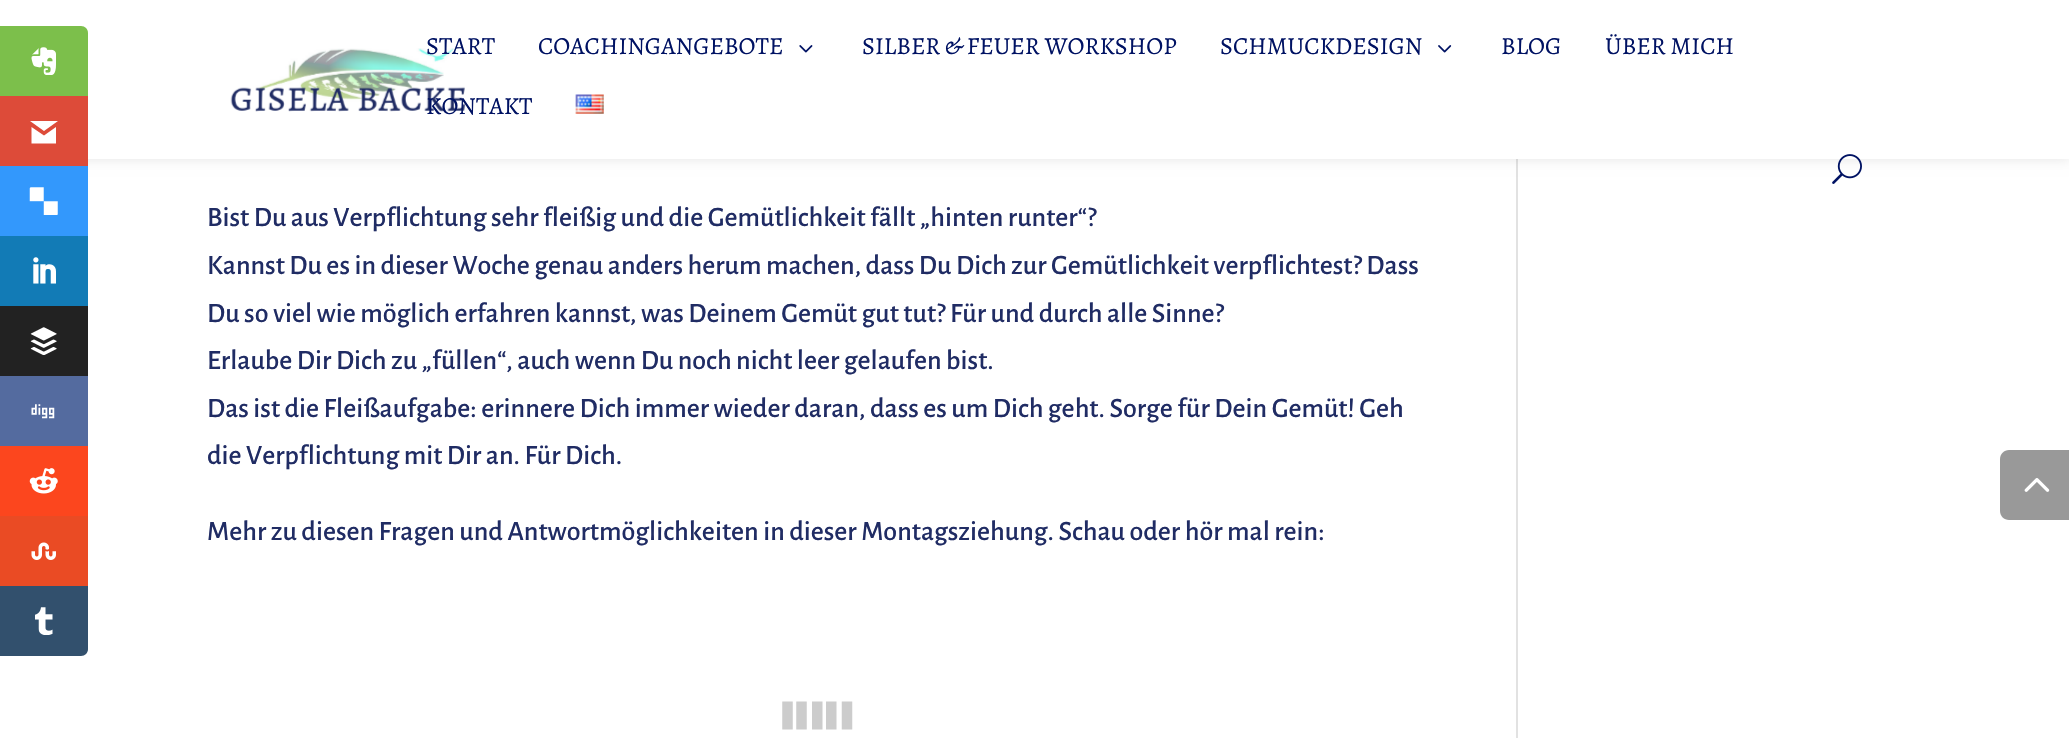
void draw(SkCanvas* canvas) {
    SkPaint paint;
    paint.setAntiAlias(true);
    canvas->clear(0xFFFFFFFF);
    paint.setColor(0xFFE2E2E2);
    canvas->drawRect(SkRect::MakeXYWH(1516, 159, 2, 579), paint);
    paint.setColor(0x1A000000);
    paint.setMaskFilter(SkMaskFilter::MakeBlur(kNormal_SkBlurStyle, 6));
    canvas->drawRect(SkRect::MakeXYWH(0, 0, 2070, 159), paint);
    paint.setMaskFilter(nullptr);
    paint.setColor(0xFFFFFFFF);
    canvas->drawRect(SkRect::MakeXYWH(0, 0, 2069, 159), paint);
    paint.setColor(0xFF7CBF4B);
    canvas->drawPath(SkPathBuilder().moveTo(0, 26).lineTo(81, 26).cubicTo(85, 26, 88, 29, 88, 33).lineTo(88, 96).lineTo(0, 96).close().detach(), paint);
    canvas->drawImageRect(SkImages::DeferredFromEncodedData(SkData::MakeFromFileName("img1.png")), SkRect::MakeXYWH(31, 47, 25, 28), SkSamplingOptions());
    paint.setColor(0xFFDD4B39);
    canvas->drawRect(SkRect::MakeXYWH(0, 96, 88, 70), paint);
    paint.setColor(0xFFFFFFFF);
    canvas->drawPath(SkPathBuilder().moveTo(58, 121).lineTo(30, 121).lineTo(44, 131).close().moveTo(44, 135.5f).lineTo(31.5f, 127).lineTo(31.5f, 143.5f).lineTo(56, 143.5f).lineTo(56, 127).close().detach(), paint);
    paint.setColor(0xFF3398FC);
    canvas->drawRect(SkRect::MakeXYWH(0, 166, 88, 70), paint);
    canvas->drawImageRect(SkImages::DeferredFromEncodedData(SkData::MakeFromFileName("img2.png")), SkRect::MakeXYWH(29, 187, 29, 28), SkSamplingOptions());
    paint.setColor(0xFF127BB6);
    canvas->drawRect(SkRect::MakeXYWH(0, 236, 88, 70), paint);
    canvas->drawImageRect(SkImages::DeferredFromEncodedData(SkData::MakeFromFileName("img3.png")), SkRect::MakeXYWH(33, 257, 23, 27), SkSamplingOptions());
    paint.setColor(0xFF222222);
    canvas->drawRect(SkRect::MakeXYWH(0, 306, 88, 70), paint);
    canvas->drawImageRect(SkImages::DeferredFromEncodedData(SkData::MakeFromFileName("img4.png")), SkRect::MakeXYWH(30, 327, 27, 28), SkSamplingOptions());
    paint.setColor(0xFF546B9F);
    canvas->drawRect(SkRect::MakeXYWH(0, 376, 88, 70), paint);
    canvas->drawImageRect(SkImages::DeferredFromEncodedData(SkData::MakeFromFileName("img5.png")), SkRect::MakeXYWH(31, 404, 24, 15), SkSamplingOptions());
    paint.setColor(0xFFFC461E);
    canvas->drawRect(SkRect::MakeXYWH(0, 446, 88, 70), paint);
    canvas->drawImageRect(SkImages::DeferredFromEncodedData(SkData::MakeFromFileName("img6.png")), SkRect::MakeXYWH(29, 468, 29, 26), SkSamplingOptions());
    paint.setColor(0xFFEA4B24);
    canvas->drawRect(SkRect::MakeXYWH(0, 516, 88, 70), paint);
    canvas->drawImageRect(SkImages::DeferredFromEncodedData(SkData::MakeFromFileName("img7.png")), SkRect::MakeXYWH(31, 542, 25, 18), SkSamplingOptions());
    paint.setColor(0xFF32506D);
    canvas->drawPath(SkPathBuilder().moveTo(0, 586).lineTo(88, 586).lineTo(88, 649).cubicTo(88, 653, 85, 656, 81, 656).lineTo(0, 656).close().detach(), paint);
    canvas->drawImageRect(SkImages::DeferredFromEncodedData(SkData::MakeFromFileName("img8.png")), SkRect::MakeXYWH(35, 607, 18, 28), SkSamplingOptions());
    canvas->drawImageRect(SkImages::DeferredFromEncodedData(SkData::MakeFromFileName("img9.png")), SkRect::MakeXYWH(230, 48, 236, 64), SkSamplingOptions());
    SkFont font1(fontMgr->matchFamilyStyle("Alegreya SC", SkFontStyle::Normal()), 24.5f);
    font1.setSubpixel(true);
    paint.setColor(0xFF001263);
    canvas->drawString("START", 426, 54, font1, paint);
    canvas->drawString("COACHINGANGEBOTE", 538, 54, font1, paint);
    canvas->drawImageRect(SkImages::DeferredFromEncodedData(SkData::MakeFromFileName("img10.png")), SkRect::MakeXYWH(799, 45, 14, 8), SkSamplingOptions());
    canvas->drawString("SILBER & FEUER WORKSHOP", 862, 54, font1, paint);
    canvas->drawString("SCHMUCKDESIGN", 1220, 54, font1, paint);
    canvas->drawImageRect(SkImages::DeferredFromEncodedData(SkData::MakeFromFileName("img11.png")), SkRect::MakeXYWH(1438, 45, 14, 8), SkSamplingOptions());
    canvas->drawString("BLOG", 1501, 54, font1, paint);
    canvas->drawString("ÜBER MICH", 1605, 54, font1, paint);
    canvas->drawString("KONTAKT", 426, 114, font1, paint);
    canvas->drawImageRect(SkImages::DeferredFromEncodedData(SkData::MakeFromFileName("img12.png")), SkRect::MakeXYWH(575, 94, 29, 20), SkSamplingOptions());
    canvas->drawImageRect(SkImages::DeferredFromEncodedData(SkData::MakeFromFileName("img13.png")), SkRect::MakeXYWH(1832, 154, 30, 30), SkSamplingOptions());
    SkFont font2(fontMgr->matchFamilyStyle("Alegreya Sans", SkFontStyle(500, SkFontStyle::kNormal_Width, SkFontStyle::kUpright_Slant)), 28);
    font2.setSubpixel(true);
    paint.setColor(0xFF202C64);
    canvas->drawString("Bist Du aus Verpflichtung sehr fleißig und die Gemütlichkeit fällt „hinten runter“?", 207, 226, font2, paint);
    canvas->drawString("Kannst Du es in dieser Woche genau anders herum machen, dass Du Dich zur Gemütlichkeit verpflichtest? Dass", 207, 274, font2, paint);
    canvas->drawString("Du so viel wie möglich erfahren kannst, was Deinem Gemüt gut tut? Für und durch alle Sinne?", 207, 322, font2, paint);
    canvas->drawString("Erlaube Dir Dich zu „füllen“, auch wenn Du noch nicht leer gelaufen bist.", 207, 369, font2, paint);
    canvas->drawString("Das ist die Fleißaufgabe: erinnere Dich immer wieder daran, dass es um Dich geht. Sorge für Dein Gemüt! Geh", 207, 417, font2, paint);
    canvas->drawString("die Verpflichtung mit Dir an. Für Dich.", 207, 464, font2, paint);
    canvas->drawString("Mehr zu diesen Fragen und Antwortmöglichkeiten in dieser Montagsziehung. Schau oder hör mal rein:", 207, 540, font2, paint);
    canvas->drawImageRect(SkImages::DeferredFromEncodedData(SkData::MakeFromFileName("img14.png")), SkRect::MakeXYWH(782, 701, 71, 29), SkSamplingOptions());
    paint.setColor(0xFF999999);
    canvas->drawPath(SkPathBuilder().moveTo(2009, 450).lineTo(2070, 450).lineTo(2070, 520).lineTo(2009, 520).cubicTo(2004, 520, 2000, 516, 2000, 511).lineTo(2000, 459).cubicTo(2000, 454, 2004, 450, 2009, 450).close().detach(), paint);
    canvas->drawImageRect(SkImages::DeferredFromEncodedData(SkData::MakeFromFileName("img15.png")), SkRect::MakeXYWH(2024, 478, 26, 14), SkSamplingOptions());
}
